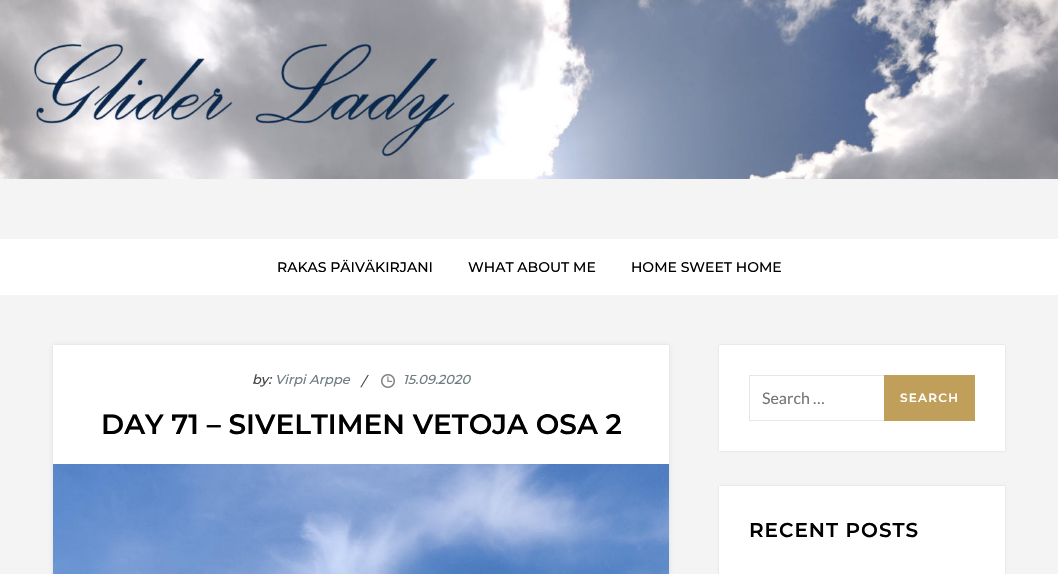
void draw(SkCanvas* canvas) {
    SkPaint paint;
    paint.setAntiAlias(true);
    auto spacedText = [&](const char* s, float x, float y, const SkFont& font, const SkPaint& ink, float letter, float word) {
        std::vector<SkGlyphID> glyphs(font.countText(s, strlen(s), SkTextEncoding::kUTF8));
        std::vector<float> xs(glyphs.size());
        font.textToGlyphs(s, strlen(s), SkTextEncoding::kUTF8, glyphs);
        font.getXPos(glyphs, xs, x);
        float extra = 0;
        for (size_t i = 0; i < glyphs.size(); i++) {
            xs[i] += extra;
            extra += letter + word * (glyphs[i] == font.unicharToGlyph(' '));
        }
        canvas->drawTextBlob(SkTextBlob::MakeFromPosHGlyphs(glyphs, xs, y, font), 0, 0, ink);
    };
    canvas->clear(0xFFF4F4F4);
    canvas->drawImageRect(SkImages::DeferredFromEncodedData(SkData::MakeFromFileName("img1.png")), SkRect::MakeXYWH(0, 0, 1058, 179), SkSamplingOptions());
    paint.setColor(0xFFFFFFFF);
    canvas->drawRect(SkRect::MakeXYWH(0, 239, 1058, 56), paint);
    SkFont font1(fontMgr->matchFamilyStyle("Montserrat", SkFontStyle(500, SkFontStyle::kNormal_Width, SkFontStyle::kUpright_Slant)), 14);
    font1.setSubpixel(true);
    paint.setColor(0xFF000000);
    canvas->drawString("RAKAS PÄIVÄKIRJANI", 277, 272, font1, paint);
    canvas->drawString("WHAT ABOUT ME", 468, 272, font1, paint);
    canvas->drawString("HOME SWEET HOME", 631, 272, font1, paint);
    paint.setColor(0x14333333);
    paint.setMaskFilter(SkMaskFilter::MakeBlur(kNormal_SkBlurStyle, 1));
    canvas->drawRect(SkRect::MakeXYWH(53, 345, 616, 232), paint);
    paint.setMaskFilter(nullptr);
    paint.setMaskFilter(SkMaskFilter::MakeBlur(kNormal_SkBlurStyle, 3));
    canvas->drawRect(SkRect::MakeXYWH(53, 345, 616, 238), paint);
    paint.setMaskFilter(nullptr);
    paint.setColor(0xFFFFFFFF);
    canvas->drawRect(SkRect::MakeXYWH(53, 345, 616, 119), paint);
    SkFont font2(fontMgr->matchFamilyStyle("Montserrat", SkFontStyle(500, SkFontStyle::kNormal_Width, SkFontStyle::kItalic_Slant)), 13);
    font2.setSubpixel(true);
    paint.setColor(0xFF444444);
    canvas->drawString("by:", 252, 384, font2, paint);
    paint.setColor(0xFF717E81);
    canvas->drawString("Virpi Arppe", 275, 384, font2, paint);
    paint.setColor(0xFF444444);
    canvas->drawString("/", 361, 386, font2, paint);
    canvas->drawImageRect(SkImages::DeferredFromEncodedData(SkData::MakeFromFileName("img2.png")), SkRect::MakeXYWH(381, 374, 14, 14), SkSamplingOptions());
    paint.setColor(0xFF717E81);
    canvas->drawString("15.09.2020", 403, 384, font2, paint);
    SkFont font3(fontMgr->matchFamilyStyle("Montserrat", SkFontStyle(600, SkFontStyle::kNormal_Width, SkFontStyle::kUpright_Slant)), 28);
    font3.setSubpixel(true);
    paint.setColor(0xFF000000);
    canvas->drawString("DAY 71 – SIVELTIMEN VETOJA OSA 2", 101, 434, font3, paint);
    canvas->drawImageRect(SkImages::DeferredFromEncodedData(SkData::MakeFromFileName("img3.png")), SkRect::MakeXYWH(53, 464, 616, 110), SkSamplingOptions());
    paint.setColor(0x14333333);
    paint.setMaskFilter(SkMaskFilter::MakeBlur(kNormal_SkBlurStyle, 1));
    canvas->drawRect(SkRect::MakeXYWH(719, 345, 286, 106), paint);
    paint.setMaskFilter(nullptr);
    paint.setMaskFilter(SkMaskFilter::MakeBlur(kNormal_SkBlurStyle, 1));
    canvas->drawRect(SkRect::MakeXYWH(719, 345, 286, 106), paint);
    paint.setMaskFilter(nullptr);
    paint.setColor(0xFFFFFFFF);
    canvas->drawRect(SkRect::MakeXYWH(719, 345, 286, 106), paint);
    paint.setStyle(SkPaint::kStroke_Style);
    paint.setStrokeWidth(1);
    paint.setColor(0xFFE7E7E7);
    canvas->drawRect(SkRect::MakeXYWH(749.5f, 375.5f, 225, 45), paint);
    SkFont font4(fontMgr->matchFamilyStyle("Lato", SkFontStyle::Normal()), 16);
    font4.setSubpixel(true);
    paint.setStyle(SkPaint::kFill_Style);
    paint.setColor(0xFF757575);
    canvas->drawString("Search …", 762, 404, font4, paint);
    paint.setColor(0xFFC09F5A);
    canvas->drawRect(SkRect::MakeXYWH(884, 375, 91, 46), paint);
    SkFont font5(fontMgr->matchFamilyStyle("Montserrat", SkFontStyle(600, SkFontStyle::kNormal_Width, SkFontStyle::kUpright_Slant)), 12);
    font5.setSubpixel(true);
    paint.setColor(0xFFFFFFFF);
    spacedText("SEARCH", 900, 402, font5, paint, 1.25f, 0);
    paint.setColor(0x14333333);
    paint.setMaskFilter(SkMaskFilter::MakeBlur(kNormal_SkBlurStyle, 1));
    canvas->drawRect(SkRect::MakeXYWH(719, 486, 286, 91), paint);
    paint.setMaskFilter(nullptr);
    paint.setMaskFilter(SkMaskFilter::MakeBlur(kNormal_SkBlurStyle, 1));
    canvas->drawRect(SkRect::MakeXYWH(719, 486, 286, 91), paint);
    paint.setMaskFilter(nullptr);
    paint.setColor(0xFFFFFFFF);
    canvas->drawRect(SkRect::MakeXYWH(719, 486, 286, 88), paint);
    SkFont font6(fontMgr->matchFamilyStyle("Montserrat", SkFontStyle(600, SkFontStyle::kNormal_Width, SkFontStyle::kUpright_Slant)), 20);
    font6.setSubpixel(true);
    paint.setColor(0xFF000000);
    spacedText("RECENT POSTS", 749, 537, font6, paint, 1, 0);
}
